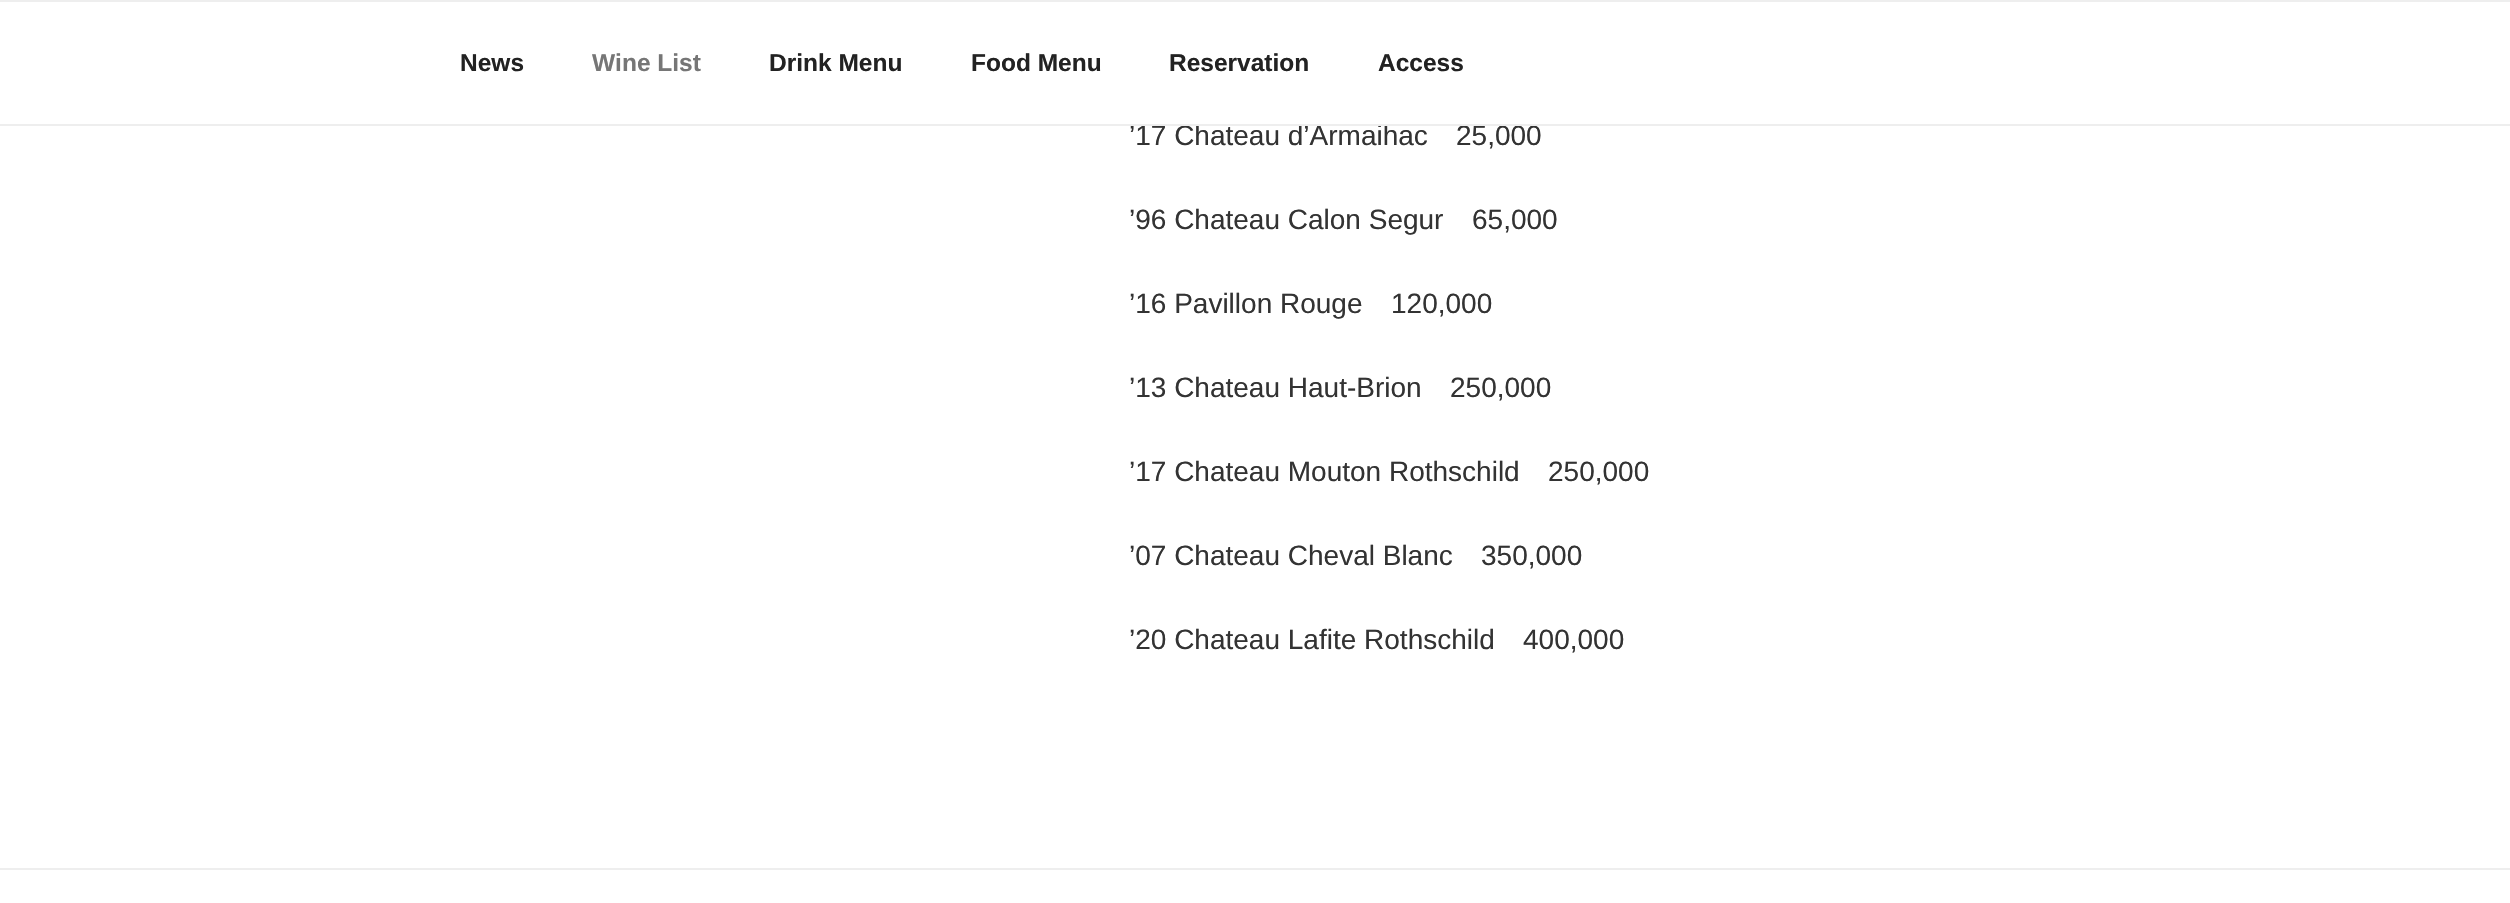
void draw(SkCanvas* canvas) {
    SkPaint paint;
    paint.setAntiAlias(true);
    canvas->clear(0xFFFFFFFF);
    paint.setColor(0xFFEEEEEE);
    canvas->drawRect(SkRect::MakeXYWH(0, 0, 2510, 2), paint);
    SkFont font1(fontMgr->matchFamilyStyle("Liberation Sans", SkFontStyle::Normal()), 28);
    font1.setSubpixel(true);
    paint.setColor(0xFF333333);
    canvas->drawString("’17 Chateau d’Armaihac", 1129, 145, font1, paint);
    canvas->drawString("25,000", 1456, 145, font1, paint);
    paint.setColor(0xFFEEEEEE);
    canvas->drawRect(SkRect::MakeXYWH(0, 124, 2510, 2), paint);
    SkFont font2(fontMgr->matchFamilyStyle("Liberation Sans", SkFontStyle::Bold()), 24.5f);
    font2.setSubpixel(true);
    paint.setColor(0xFF222222);
    canvas->drawString("News", 460, 71, font2, paint);
    paint.setColor(0xFF767676);
    canvas->drawString("Wine List", 592, 71, font2, paint);
    paint.setColor(0xFF222222);
    canvas->drawString("Drink Menu", 769, 71, font2, paint);
    canvas->drawString("Food Menu", 971, 71, font2, paint);
    canvas->drawString("Reservation", 1169, 71, font2, paint);
    canvas->drawString("Access", 1378, 71, font2, paint);
    paint.setColor(0xFF333333);
    canvas->drawString("’96 Chateau Calon Segur", 1129, 229, font1, paint);
    canvas->drawString("65,000", 1472, 229, font1, paint);
    canvas->drawString("’16 Pavillon Rouge", 1129, 313, font1, paint);
    canvas->drawString("120,000", 1391, 313, font1, paint);
    canvas->drawString("’13 Chateau Haut-Brion", 1129, 397, font1, paint);
    canvas->drawString("250,000", 1450, 397, font1, paint);
    canvas->drawString("’17 Chateau Mouton Rothschild", 1129, 481, font1, paint);
    canvas->drawString("250,000", 1548, 481, font1, paint);
    canvas->drawString("’07 Chateau Cheval Blanc", 1129, 565, font1, paint);
    canvas->drawString("350,000", 1481, 565, font1, paint);
    canvas->drawString("’20 Chateau Lafite Rothschild", 1129, 649, font1, paint);
    canvas->drawString("400,000", 1523, 649, font1, paint);
    paint.setColor(0xFFEEEEEE);
    canvas->drawRect(SkRect::MakeXYWH(0, 868, 2510, 2), paint);
}
